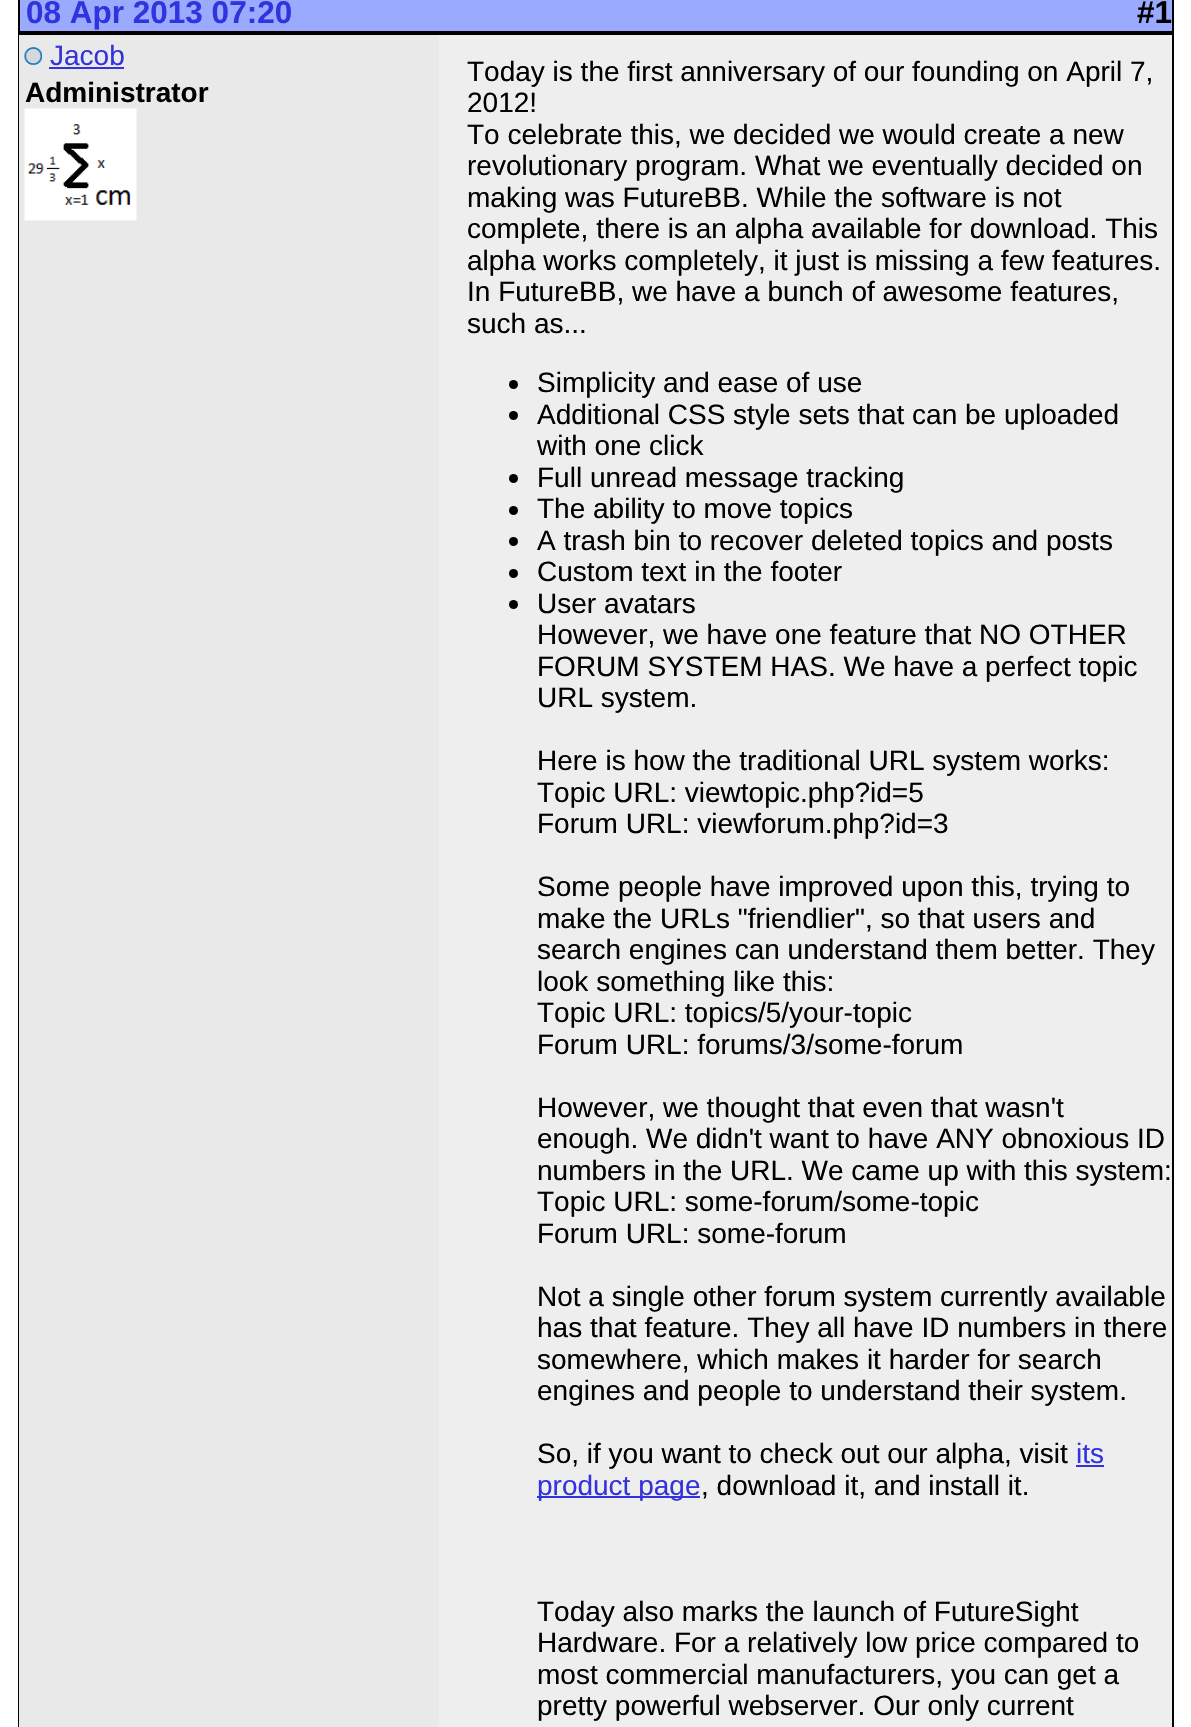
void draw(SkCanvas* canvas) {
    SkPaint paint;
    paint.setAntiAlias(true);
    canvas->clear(0xFFFFFFFF);
    paint.setColor(0xFF99AAFF);
    canvas->drawRect(SkRect::MakeXYWH(19, -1, 1154, 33), paint);
    paint.setStyle(SkPaint::kStroke_Style);
    paint.setStrokeWidth(2);
    paint.setColor(0xFF000000);
    canvas->drawRect(SkRect::MakeXYWH(19, -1, 1154, 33), paint);
    SkFont font1(fontMgr->matchFamilyStyle("Liberation Sans", SkFontStyle::Bold()), 31.5f);
    font1.setSubpixel(true);
    paint.setStyle(SkPaint::kFill_Style);
    paint.setColor(0xFF3333DD);
    canvas->drawString("08 Apr 2013 07:20", 26, 23, font1, paint);
    paint.setColor(0xFF000000);
    canvas->drawString("#1", 1137, 23, font1, paint);
    paint.setColor(0xFFEEEEEE);
    canvas->drawRect(SkRect::MakeXYWH(439, 35, 733, 1692), paint);
    paint.setStyle(SkPaint::kStroke_Style);
    paint.setColor(0xFF000000);
    canvas->drawRect(SkRect::MakeXYWH(19, 34, 1154, 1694), paint);
    paint.setStyle(SkPaint::kFill_Style);
    paint.setColor(0xFFE9E9E9);
    canvas->drawRect(SkRect::MakeXYWH(19, 35, 420, 1692), paint);
    canvas->drawImageRect(SkImages::DeferredFromEncodedData(SkData::MakeFromFileName("img1.png")), SkRect::MakeXYWH(24, 47, 18, 18), SkSamplingOptions());
    SkFont font2(fontMgr->matchFamilyStyle("Liberation Sans", SkFontStyle::Normal()), 28);
    font2.setSubpixel(true);
    paint.setColor(0xFF3333DD);
    canvas->drawString("Jacob", 50, 65, font2, paint);
    canvas->drawRect(SkRect::MakeXYWH(49, 67, 75, 2), paint);
    SkFont font3(fontMgr->matchFamilyStyle("Liberation Sans", SkFontStyle::Bold()), 28);
    font3.setSubpixel(true);
    paint.setColor(0xFF000000);
    canvas->drawString("Administrator", 25, 102, font3, paint);
    canvas->drawImageRect(SkImages::DeferredFromEncodedData(SkData::MakeFromFileName("img2.png")), SkRect::MakeXYWH(24, 108, 113, 113), SkSamplingOptions());
    canvas->drawString("Today is the first anniversary of our founding on April 7,", 467, 81, font2, paint);
    canvas->drawString("2012!", 467, 112, font2, paint);
    canvas->drawString("To celebrate this, we decided we would create a new", 467, 144, font2, paint);
    canvas->drawString("revolutionary program. What we eventually decided on", 467, 175, font2, paint);
    canvas->drawString("making was FutureBB. While the software is not", 467, 207, font2, paint);
    canvas->drawString("complete, there is an alpha available for download. This", 467, 238, font2, paint);
    canvas->drawString("alpha works completely, it just is missing a few features.", 467, 270, font2, paint);
    canvas->drawString("In FutureBB, we have a bunch of awesome features,", 467, 301, font2, paint);
    canvas->drawString("such as...", 467, 333, font2, paint);
    canvas->drawCircle(513.5f, 384.5f, 4.5f, paint);
    canvas->drawString("Simplicity and ease of use", 537, 392, font2, paint);
    canvas->drawCircle(513.5f, 415.5f, 4.5f, paint);
    canvas->drawString("Additional CSS style sets that can be uploaded", 537, 424, font2, paint);
    canvas->drawString("with one click", 537, 455, font2, paint);
    canvas->drawCircle(513.5f, 478.5f, 4.5f, paint);
    canvas->drawString("Full unread message tracking", 537, 487, font2, paint);
    canvas->drawCircle(513.5f, 510.5f, 4.5f, paint);
    canvas->drawString("The ability to move topics", 537, 518, font2, paint);
    canvas->drawCircle(513.5f, 541.5f, 4.5f, paint);
    canvas->drawString("A trash bin to recover deleted topics and posts", 537, 550, font2, paint);
    canvas->drawCircle(513.5f, 573.5f, 4.5f, paint);
    canvas->drawString("Custom text in the footer", 537, 581, font2, paint);
    canvas->drawCircle(513.5f, 604.5f, 4.5f, paint);
    canvas->drawString("User avatars", 537, 613, font2, paint);
    canvas->drawString("However, we have one feature that NO OTHER", 537, 644, font2, paint);
    canvas->drawString("FORUM SYSTEM HAS. We have a perfect topic", 537, 676, font2, paint);
    canvas->drawString("URL system.", 537, 707, font2, paint);
    canvas->drawString("Here is how the traditional URL system works:", 537, 770, font2, paint);
    canvas->drawString("Topic URL: viewtopic.php?id=5", 537, 802, font2, paint);
    canvas->drawString("Forum URL: viewforum.php?id=3", 537, 833, font2, paint);
    canvas->drawString("Some people have improved upon this, trying to", 537, 896, font2, paint);
    canvas->drawString("make the URLs \"friendlier\", so that users and", 537, 928, font2, paint);
    canvas->drawString("search engines can understand them better. They", 537, 959, font2, paint);
    canvas->drawString("look something like this:", 537, 991, font2, paint);
    canvas->drawString("Topic URL: topics/5/your-topic", 537, 1022, font2, paint);
    canvas->drawString("Forum URL: forums/3/some-forum", 537, 1054, font2, paint);
    canvas->drawString("However, we thought that even that wasn't", 537, 1117, font2, paint);
    canvas->drawString("enough. We didn't want to have ANY obnoxious ID", 537, 1148, font2, paint);
    canvas->drawString("numbers in the URL. We came up with this system:", 537, 1180, font2, paint);
    canvas->drawString("Topic URL: some-forum/some-topic", 537, 1211, font2, paint);
    canvas->drawString("Forum URL: some-forum", 537, 1243, font2, paint);
    canvas->drawString("Not a single other forum system currently available", 537, 1306, font2, paint);
    canvas->drawString("has that feature. They all have ID numbers in there", 537, 1337, font2, paint);
    canvas->drawString("somewhere, which makes it harder for search", 537, 1369, font2, paint);
    canvas->drawString("engines and people to understand their system.", 537, 1400, font2, paint);
    canvas->drawString("So, if you want to check out our alpha, visit", 537, 1463, font2, paint);
    paint.setColor(0xFF3333DD);
    canvas->drawString("its", 1076, 1463, font2, paint);
    canvas->drawRect(SkRect::MakeXYWH(1076, 1465, 28, 2), paint);
    canvas->drawRect(SkRect::MakeXYWH(537, 1496, 163, 2), paint);
    canvas->drawString("product page", 537, 1495, font2, paint);
    paint.setColor(0xFF000000);
    canvas->drawString(", download it, and install it.", 701, 1495, font2, paint);
    canvas->drawString("Today also marks the launch of FutureSight", 537, 1621, font2, paint);
    canvas->drawString("Hardware. For a relatively low price compared to", 537, 1652, font2, paint);
    canvas->drawString("most commercial manufacturers, you can get a", 537, 1684, font2, paint);
    canvas->drawString("pretty powerful webserver. Our only current", 537, 1715, font2, paint);
}
